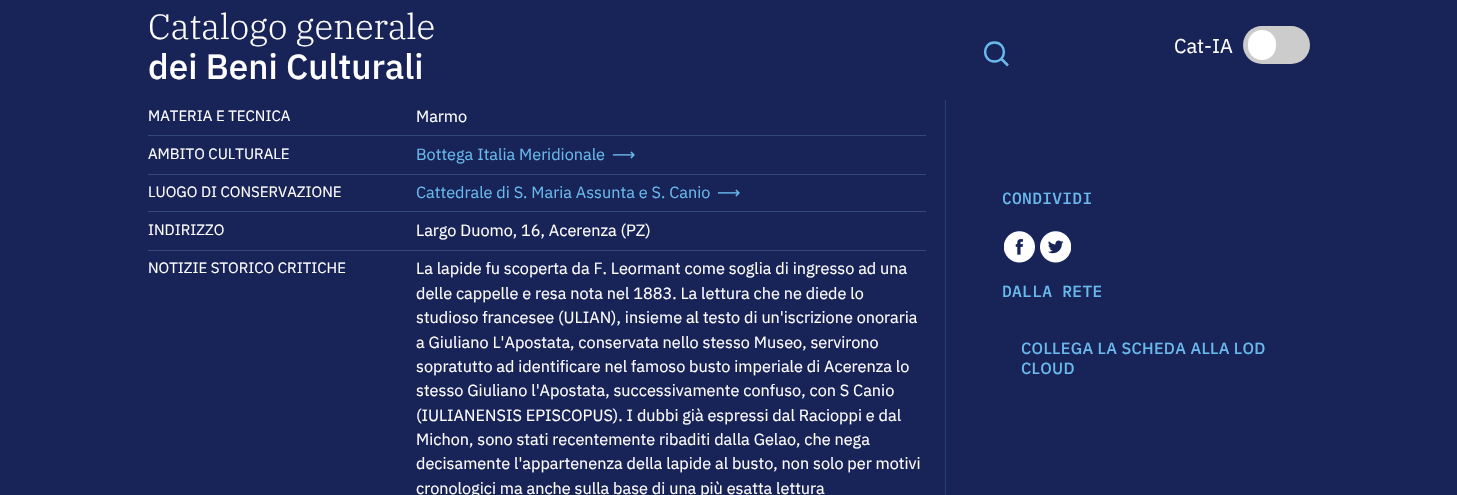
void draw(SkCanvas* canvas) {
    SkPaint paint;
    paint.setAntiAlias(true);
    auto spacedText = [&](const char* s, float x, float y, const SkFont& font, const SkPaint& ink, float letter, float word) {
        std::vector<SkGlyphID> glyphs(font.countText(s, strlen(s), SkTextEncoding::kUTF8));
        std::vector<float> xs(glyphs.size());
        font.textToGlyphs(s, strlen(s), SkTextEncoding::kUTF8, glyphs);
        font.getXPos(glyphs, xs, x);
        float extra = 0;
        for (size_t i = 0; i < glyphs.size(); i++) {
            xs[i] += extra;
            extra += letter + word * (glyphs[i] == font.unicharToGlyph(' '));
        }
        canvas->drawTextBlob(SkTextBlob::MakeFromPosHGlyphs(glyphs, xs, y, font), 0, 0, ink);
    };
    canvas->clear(0xFF182358);
    SkFont font1(fontMgr->matchFamilyStyle("IBM Plex Serif", SkFontStyle(300, SkFontStyle::kNormal_Width, SkFontStyle::kUpright_Slant)), 35);
    font1.setSubpixel(true);
    paint.setColor(0xFFFFFFFF);
    canvas->drawString("Catalogo generale", 148, 39, font1, paint);
    SkFont font2(fontMgr->matchFamilyStyle("IBM Plex Sans", SkFontStyle(500, SkFontStyle::kNormal_Width, SkFontStyle::kUpright_Slant)), 35);
    font2.setSubpixel(true);
    canvas->drawString("dei Beni Culturali", 148, 79, font2, paint);
    paint.setStyle(SkPaint::kStroke_Style);
    paint.setStrokeWidth(2.5f);
    paint.setColor(0xFF69B9EC);
    canvas->drawPath(SkPathBuilder().moveTo(994.5f, 61.5f).cubicTo(1007, 61.5f, 1007, 42.5f, 994.5f, 42.5f).cubicTo(982, 42.5f, 982, 61.5f, 994.5f, 61.5f).close().moveTo(1002, 59.5f).lineTo(1008, 65.5f).detach(), paint);
    SkFont font3(fontMgr->matchFamilyStyle("IBM Plex Sans", SkFontStyle::Normal()), 20);
    font3.setSubpixel(true);
    paint.setStyle(SkPaint::kFill_Style);
    paint.setColor(0xFFFFFFFF);
    canvas->drawString("Cat-IA", 1174, 53, font3, paint);
    paint.setColor(0xFFCCCCCC);
    canvas->drawRoundRect(SkRect::MakeXYWH(1243, 26, 67, 38), 19, 19, paint);
    paint.setColor(0xFFFFFFFF);
    canvas->drawRoundRect(SkRect::MakeXYWH(1248, 30, 28, 30), 14, 14, paint);
    paint.setColor(0xFF2A3F71);
    canvas->drawRect(SkRect::MakeXYWH(945, 100, 1, 395), paint);
    paint.setColor(0xFF354979);
    canvas->drawRect(SkRect::MakeXYWH(148, 135, 778, 1), paint);
    SkFont font4(fontMgr->matchFamilyStyle("IBM Plex Sans", SkFontStyle::Normal()), 15);
    font4.setSubpixel(true);
    paint.setColor(0xFFFFFFFF);
    canvas->drawString("MATERIA E TECNICA", 148, 121, font4, paint);
    SkFont font5(fontMgr->matchFamilyStyle("IBM Plex Sans", SkFontStyle::Normal()), 16.25f);
    font5.setSubpixel(true);
    canvas->drawString("Marmo", 416, 122, font5, paint);
    paint.setColor(0xFF354979);
    canvas->drawRect(SkRect::MakeXYWH(148, 174, 778, 1), paint);
    paint.setColor(0xFFFFFFFF);
    canvas->drawString("AMBITO CULTURALE", 148, 159, font4, paint);
    paint.setColor(0xFF69B9EC);
    canvas->drawString("Bottega Italia Meridionale", 416, 160, font5, paint);
    SkFont font6(fontMgr->matchFamilyStyle("DejaVu Sans", SkFontStyle::Normal()), 16.25f);
    font6.setSubpixel(true);
    canvas->drawString("⟶", 612, 160, font6, paint);
    paint.setColor(0xFF354979);
    canvas->drawRect(SkRect::MakeXYWH(148, 211, 778, 1), paint);
    paint.setColor(0xFFFFFFFF);
    canvas->drawString("LUOGO DI CONSERVAZIONE", 148, 197, font4, paint);
    paint.setColor(0xFF69B9EC);
    canvas->drawString("Cattedrale di S. Maria Assunta e S. Canio", 416, 198, font5, paint);
    canvas->drawString("⟶", 717, 198, font6, paint);
    paint.setColor(0xFF354979);
    canvas->drawRect(SkRect::MakeXYWH(148, 250, 778, 1), paint);
    paint.setColor(0xFFFFFFFF);
    canvas->drawString("INDIRIZZO", 148, 235, font4, paint);
    canvas->drawString("Largo Duomo, 16, Acerenza (PZ)", 416, 236, font5, paint);
    canvas->drawString("NOTIZIE STORICO CRITICHE", 148, 273, font4, paint);
    canvas->drawString("La lapide fu scoperta da F. Leormant come soglia di ingresso ad una", 416, 274, font5, paint);
    canvas->drawString("delle cappelle e resa nota nel 1883. La lettura che ne diede lo", 416, 299, font5, paint);
    canvas->drawString("studioso francesee (ULIAN), insieme al testo di un'iscrizione onoraria", 416, 323, font5, paint);
    canvas->drawString("a Giuliano L'Apostata, conservata nello stesso Museo, servirono", 416, 348, font5, paint);
    canvas->drawString("sopratutto ad identificare nel famoso busto imperiale di Acerenza lo", 416, 372, font5, paint);
    canvas->drawString("stesso Giuliano l'Apostata, successivamente confuso, con S Canio", 416, 396, font5, paint);
    canvas->drawString("(IULIANENSIS EPISCOPUS). I dubbi già espressi dal Racioppi e dal", 416, 421, font5, paint);
    canvas->drawString("Michon, sono stati recentemente ribaditi dalla Gelao, che nega", 416, 445, font5, paint);
    canvas->drawString("decisamente l'appartenenza della lapide al busto, non solo per motivi", 416, 469, font5, paint);
    canvas->drawString("cronologici ma anche sulla base di una più esatta lettura", 416, 494, font5, paint);
    SkFont font7(fontMgr->matchFamilyStyle("IBM Plex Mono", SkFontStyle(500, SkFontStyle::kNormal_Width, SkFontStyle::kUpright_Slant)), 16.25f);
    font7.setSubpixel(true);
    paint.setColor(0xFF69B9EC);
    spacedText("CONDIVIDI", 1002, 204, font7, paint, 0.3f, 0);
    canvas->drawImageRect(SkImages::DeferredFromEncodedData(SkData::MakeFromFileName("img1.png")), SkRect::MakeXYWH(1004, 231, 31, 32), SkSamplingOptions());
    canvas->drawImageRect(SkImages::DeferredFromEncodedData(SkData::MakeFromFileName("img2.png")), SkRect::MakeXYWH(1040, 231, 31, 32), SkSamplingOptions());
    spacedText("DALLA RETE", 1002, 297, font7, paint, 0.3f, 0);
    SkFont font8(fontMgr->matchFamilyStyle("IBM Plex Sans", SkFontStyle(500, SkFontStyle::kNormal_Width, SkFontStyle::kUpright_Slant)), 16.25f);
    font8.setSubpixel(true);
    spacedText("COLLEGA LA SCHEDA ALLA LOD", 1021, 354, font8, paint, 0.3f, 0);
    spacedText("CLOUD", 1021, 374, font8, paint, 0.3f, 0);
}
